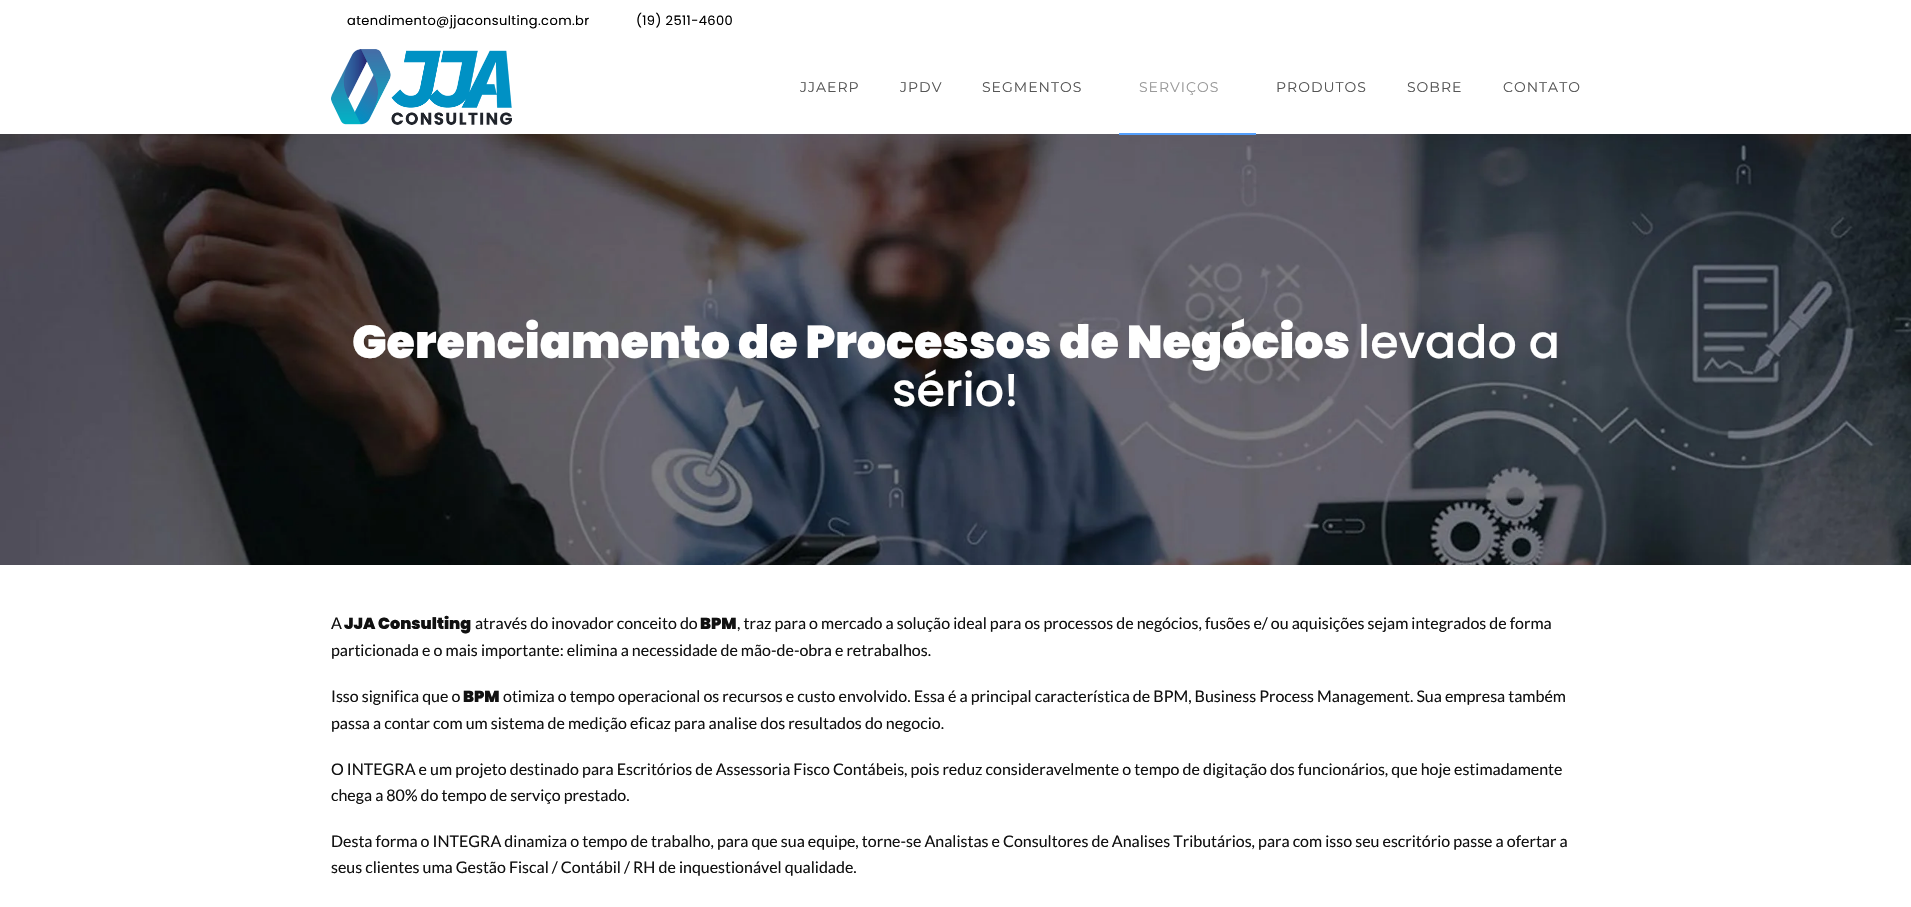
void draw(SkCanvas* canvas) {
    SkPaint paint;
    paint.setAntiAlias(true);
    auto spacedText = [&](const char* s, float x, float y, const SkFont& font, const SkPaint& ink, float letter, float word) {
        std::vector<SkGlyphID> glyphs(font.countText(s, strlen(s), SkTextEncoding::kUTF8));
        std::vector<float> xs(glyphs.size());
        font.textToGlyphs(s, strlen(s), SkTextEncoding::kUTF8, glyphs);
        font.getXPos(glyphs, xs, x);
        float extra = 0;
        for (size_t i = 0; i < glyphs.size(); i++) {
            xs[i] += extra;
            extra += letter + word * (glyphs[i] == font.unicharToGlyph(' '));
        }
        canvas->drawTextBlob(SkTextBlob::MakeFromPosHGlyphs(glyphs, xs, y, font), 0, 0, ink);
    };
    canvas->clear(0xFFFFFFFF);
    SkFont font1(fontMgr->matchFamilyStyle("Poppins", SkFontStyle::Normal()), 13);
    font1.setSubpixel(true);
    paint.setColor(0xFF000000);
    spacedText("atendimento@jjaconsulting.com.br", 347, 25, font1, paint, 0.4f, 0);
    spacedText("(19) 2511-4600", 636, 25, font1, paint, 0.4f, 0);
    canvas->drawImageRect(SkImages::DeferredFromEncodedData(SkData::MakeFromFileName("img1.png")), SkRect::MakeXYWH(331, 49, 181, 76), SkSamplingOptions());
    SkFont font2(fontMgr->matchFamilyStyle("Montserrat", SkFontStyle(100, SkFontStyle::kNormal_Width, SkFontStyle::kUpright_Slant)), 14);
    font2.setSubpixel(true);
    paint.setColor(0xFF555555);
    spacedText("JJAERP", 800, 92, font2, paint, 1, 0);
    spacedText("JPDV", 900, 92, font2, paint, 1, 0);
    spacedText("SEGMENTOS", 982, 92, font2, paint, 1, 0);
    paint.setColor(0xFF999999);
    spacedText("SERVIÇOS", 1139, 92, font2, paint, 1, 0);
    canvas->drawImageRect(SkImages::DeferredFromEncodedData(SkData::MakeFromFileName("img2.png")), SkRect::MakeXYWH(0, 134, 1911, 431), SkSamplingOptions());
    paint.setColor(0xFF549FFC);
    canvas->drawRect(SkRect::MakeXYWH(1119, 133, 137, 2), paint);
    paint.setColor(0xFF555555);
    spacedText("PRODUTOS", 1276, 92, font2, paint, 1, 0);
    spacedText("SOBRE", 1407, 92, font2, paint, 1, 0);
    spacedText("CONTATO", 1503, 92, font2, paint, 1, 0);
    SkFont font3(fontMgr->matchFamilyStyle("Poppins", SkFontStyle(900, SkFontStyle::kNormal_Width, SkFontStyle::kUpright_Slant)), 46);
    font3.setSubpixel(true);
    paint.setColor(0xFFFFFFFF);
    canvas->drawString("Gerenciamento de Processos de Negócios", 352, 358, font3, paint);
    SkFont font4(fontMgr->matchFamilyStyle("Poppins", SkFontStyle(500, SkFontStyle::kNormal_Width, SkFontStyle::kUpright_Slant)), 46);
    font4.setSubpixel(true);
    canvas->drawString("levado a", 1358, 358, font4, paint);
    canvas->drawString("sério!", 892, 406, font4, paint);
    SkFont font5(fontMgr->matchFamilyStyle("Lato", SkFontStyle::Normal()), 16);
    font5.setSubpixel(true);
    paint.setColor(0xFF111111);
    canvas->drawString("A", 331, 629, font5, paint);
    SkFont font6(fontMgr->matchFamilyStyle("Poppins", SkFontStyle(900, SkFontStyle::kNormal_Width, SkFontStyle::kUpright_Slant)), 16);
    font6.setSubpixel(true);
    canvas->drawString("JJA Consulting", 344, 629, font6, paint);
    canvas->drawString("através do inovador conceito do", 475, 629, font5, paint);
    canvas->drawString("BPM", 700, 629, font6, paint);
    canvas->drawString(", traz para o mercado a solução ideal para os processos de negócios, fusões e/ ou aquisições sejam integrados de forma", 737, 629, font5, paint);
    canvas->drawString("particionada e o mais importante: elimina a necessidade de mão-de-obra e retrabalhos.", 331, 656, font5, paint);
    canvas->drawString("Isso significa que o", 331, 702, font5, paint);
    canvas->drawString("BPM", 463, 702, font6, paint);
    canvas->drawString("otimiza o tempo operacional os recursos e custo envolvido. Essa é a principal característica de BPM, Business Process Management. Sua empresa também", 503, 702, font5, paint);
    canvas->drawString("passa a contar com um sistema de medição eficaz para analise dos resultados do negocio.", 331, 729, font5, paint);
    canvas->drawString("O INTEGRA e um projeto destinado para Escritórios de Assessoria Fisco Contábeis, pois reduz consideravelmente o tempo de digitação dos funcionários, que hoje estimadamente", 331, 775, font5, paint);
    canvas->drawString("chega a 80% do tempo de serviço prestado.", 331, 801, font5, paint);
    canvas->drawString("Desta forma o INTEGRA dinamiza o tempo de trabalho, para que sua equipe, torne-se Analistas e Consultores de Analises Tributários, para com isso seu escritório passe a ofertar a", 331, 847, font5, paint);
    canvas->drawString("seus clientes uma Gestão Fiscal / Contábil / RH de inquestionável qualidade.", 331, 873, font5, paint);
}
